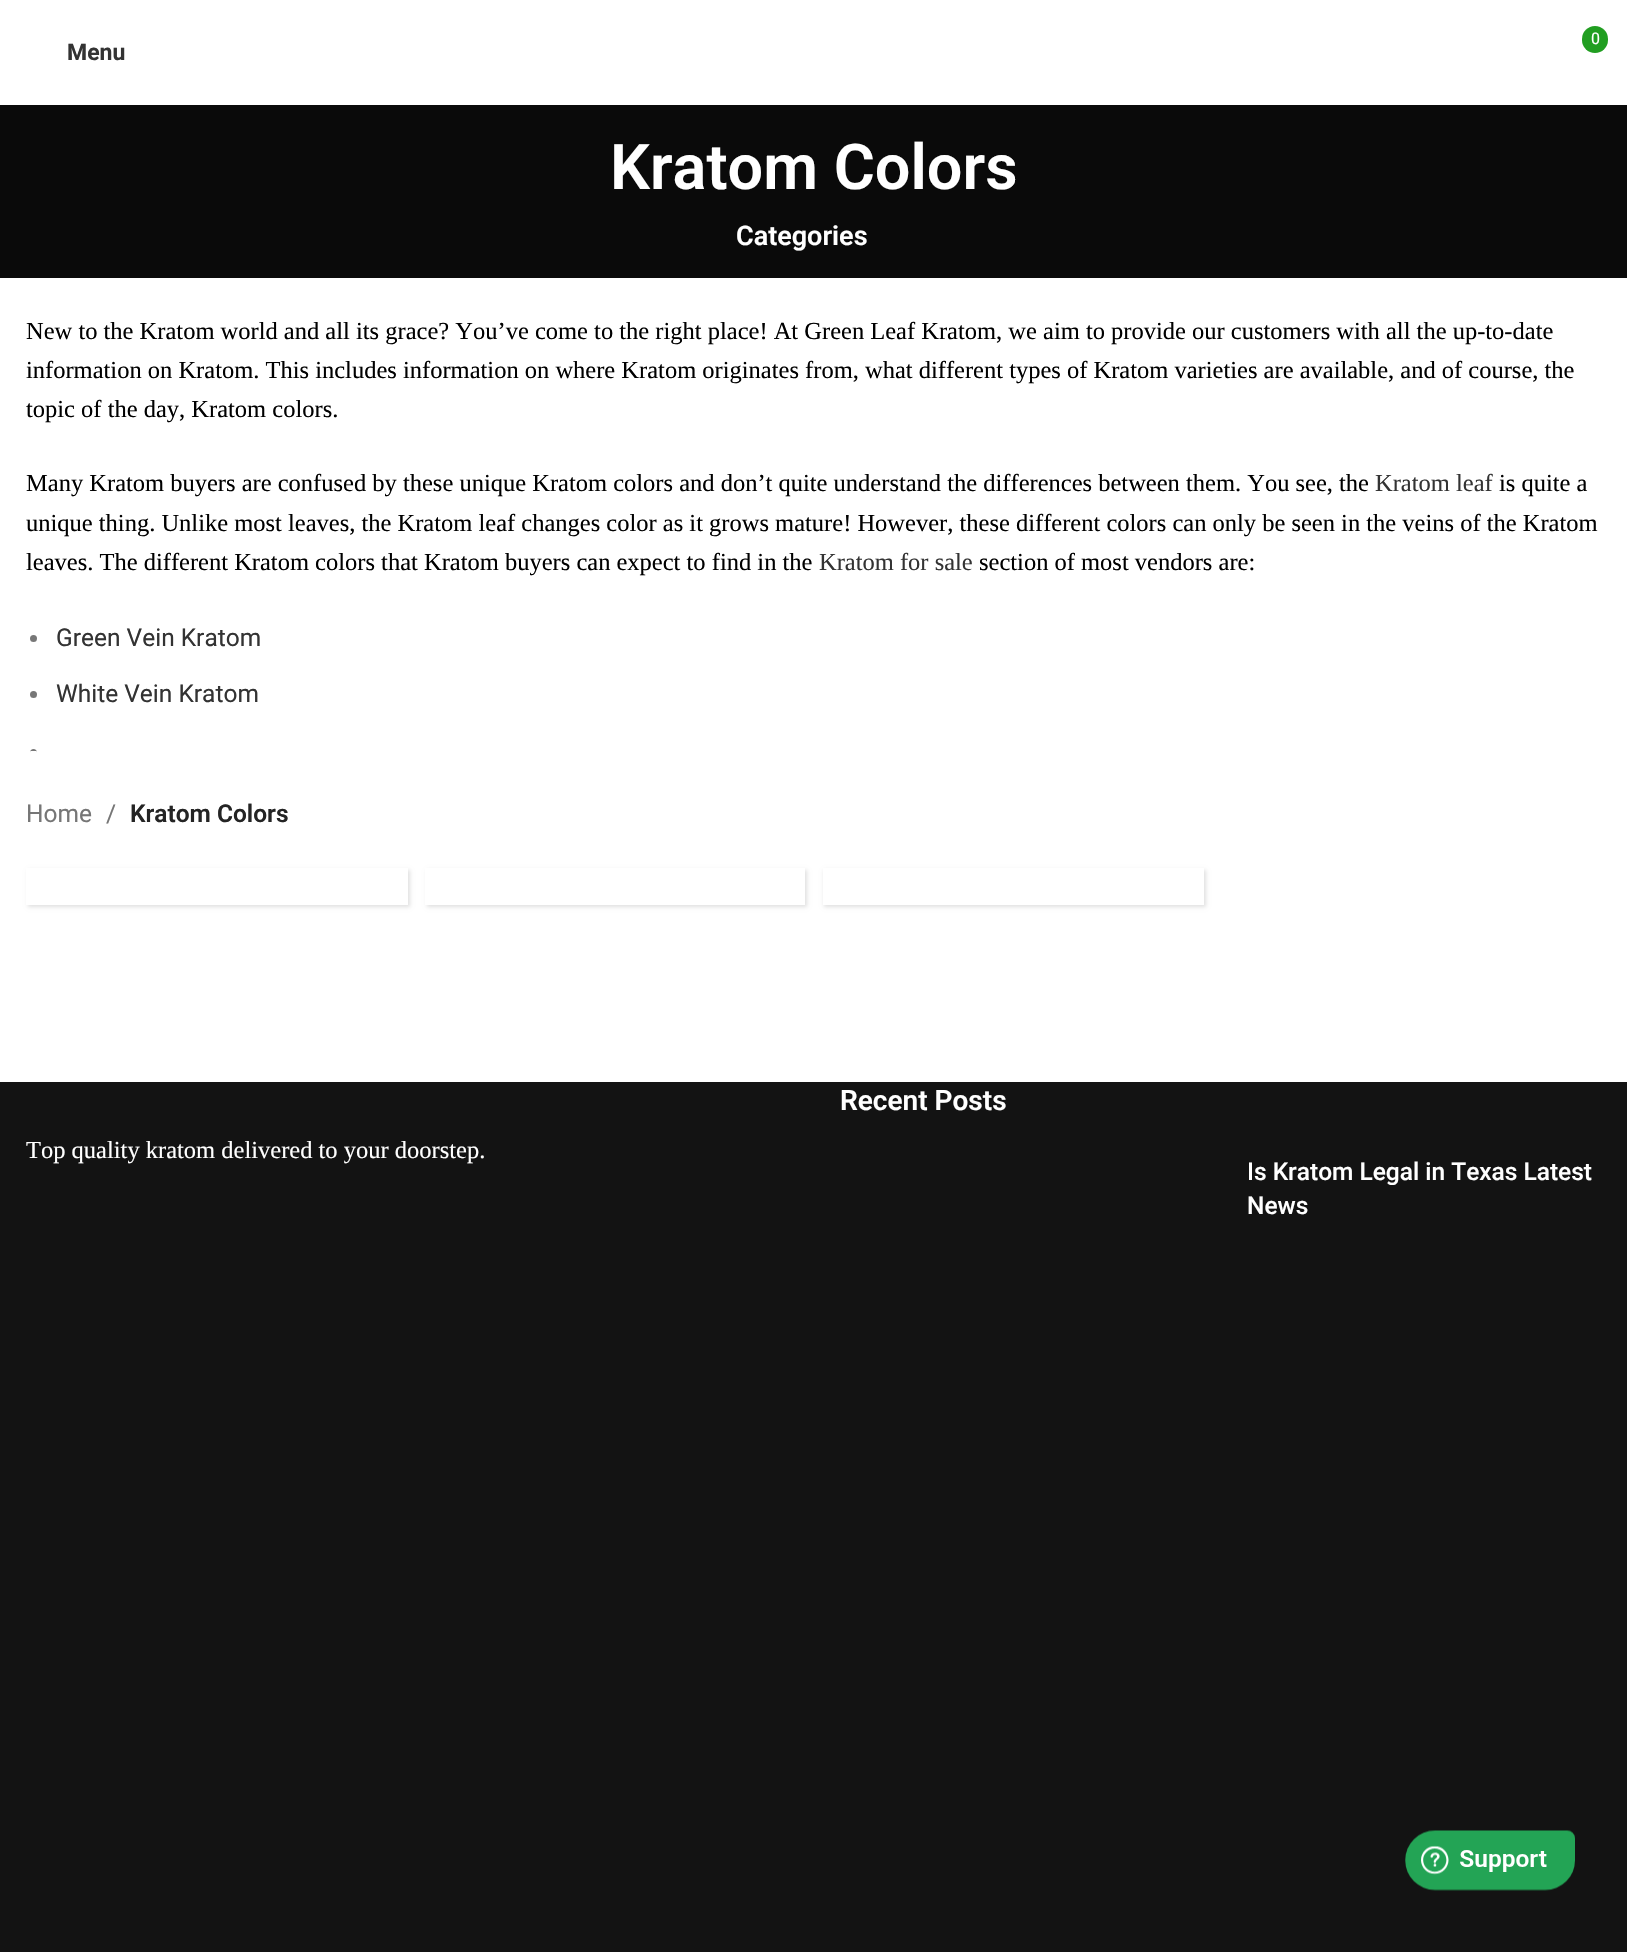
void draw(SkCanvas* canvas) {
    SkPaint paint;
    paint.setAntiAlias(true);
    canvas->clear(0xFFFFFFFF);
    paint.setColor(0xFF219E21);
    canvas->drawRoundRect(SkRect::MakeXYWH(1582, 26, 26, 27), 13, 13, paint);
    SkFont font1(fontMgr->matchFamilyStyle("Roboto", SkFontStyle::Normal()), 16);
    font1.setSubpixel(true);
    paint.setColor(0xFFFFFFFF);
    canvas->drawString("0", 1591, 44, font1, paint);
    SkFont font2(fontMgr->matchFamilyStyle("Roboto", SkFontStyle::Bold()), 23);
    font2.setSubpixel(true);
    paint.setColor(0xFF333333);
    canvas->drawString("Menu", 67, 60, font2, paint);
    paint.setColor(0xFF0A0A0A);
    canvas->drawRect(SkRect::MakeXYWH(0, 105, 1627, 173), paint);
    SkFont font3(fontMgr->matchFamilyStyle("Roboto", SkFontStyle(600, SkFontStyle::kNormal_Width, SkFontStyle::kUpright_Slant)), 63);
    font3.setSubpixel(true);
    paint.setColor(0xFFFFFFFF);
    canvas->drawString("Kratom Colors", 610, 189, font3, paint);
    SkFont font4(fontMgr->matchFamilyStyle("Roboto", SkFontStyle(600, SkFontStyle::kNormal_Width, SkFontStyle::kUpright_Slant)), 27);
    font4.setSubpixel(true);
    canvas->drawString("Categories", 736, 245, font4, paint);
    SkFont font5(fontMgr->matchFamilyStyle("Liberation Serif", SkFontStyle::Normal()), 24.5f);
    font5.setSubpixel(true);
    paint.setColor(0xFF000000);
    canvas->drawString("New to the Kratom world and all its grace? You’ve come to the right place! At Green Leaf Kratom, we aim to provide our customers with all the up-to-date", 26, 339, font5, paint);
    canvas->drawString("information on Kratom. This includes information on where Kratom originates from, what different types of Kratom varieties are available, and of course, the", 26, 378, font5, paint);
    canvas->drawString("topic of the day, Kratom colors.", 26, 417, font5, paint);
    canvas->drawString("Many Kratom buyers are confused by these unique Kratom colors and don’t quite understand the differences between them. You see, the", 26, 491, font5, paint);
    paint.setColor(0xFF333333);
    canvas->drawString("Kratom leaf", 1375, 491, font5, paint);
    paint.setColor(0xFF000000);
    canvas->drawString("is quite a", 1499, 491, font5, paint);
    canvas->drawString("unique thing. Unlike most leaves, the Kratom leaf changes color as it grows mature! However, these different colors can only be seen in the veins of the Kratom", 26, 531, font5, paint);
    canvas->drawString("leaves. The different Kratom colors that Kratom buyers can expect to find in the", 26, 570, font5, paint);
    paint.setColor(0xFF333333);
    canvas->drawString("Kratom for sale", 819, 570, font5, paint);
    paint.setColor(0xFF000000);
    canvas->drawString("section of most vendors are:", 979, 570, font5, paint);
    paint.setColor(0xFF777777);
    canvas->drawCircle(33.5f, 638.5f, 3.5f, paint);
    SkFont font6(fontMgr->matchFamilyStyle("Roboto", SkFontStyle::Normal()), 24.5f);
    font6.setSubpixel(true);
    paint.setColor(0xFF333333);
    canvas->drawString("Green Vein Kratom", 56, 646, font6, paint);
    paint.setColor(0xFF777777);
    canvas->drawCircle(33.5f, 694.5f, 3.5f, paint);
    paint.setColor(0xFF333333);
    canvas->drawString("White Vein Kratom", 56, 702, font6, paint);
    paint.setColor(0xFF777777);
    canvas->drawPath(SkPathBuilder().moveTo(33.5f, 749).cubicTo(35.5f, 749, 37, 750.5f, 37, 752.5f).lineTo(37, 751).lineTo(30, 751).lineTo(30, 752.5f).cubicTo(30, 750.5f, 31.5f, 749, 33.5f, 749).close().detach(), paint);
    paint.setColor(0xFF767676);
    canvas->drawString("Home", 26, 822, font6, paint);
    canvas->drawString("/", 106, 822, font6, paint);
    SkFont font7(fontMgr->matchFamilyStyle("Roboto", SkFontStyle(600, SkFontStyle::kNormal_Width, SkFontStyle::kUpright_Slant)), 24.5f);
    font7.setSubpixel(true);
    paint.setColor(0xFF242424);
    canvas->drawString("Kratom Colors", 130, 822, font7, paint);
    canvas->save();
    canvas->clipPath(SkPathBuilder(SkPathFillType::kEvenOdd).moveTo(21, 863).lineTo(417, 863).lineTo(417, 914).lineTo(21, 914).close().moveTo(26, 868).lineTo(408, 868).lineTo(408, 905).lineTo(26, 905).close().detach(), true);
    paint.setColor(0x1F000000);
    paint.setMaskFilter(SkMaskFilter::MakeBlur(kNormal_SkBlurStyle, 2));
    canvas->drawRect(SkRect::MakeXYWH(28, 870, 382, 37), paint);
    paint.setMaskFilter(nullptr);
    canvas->restore();
    canvas->save();
    canvas->clipPath(SkPathBuilder(SkPathFillType::kEvenOdd).moveTo(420, 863).lineTo(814, 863).lineTo(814, 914).lineTo(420, 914).close().moveTo(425, 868).lineTo(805, 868).lineTo(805, 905).lineTo(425, 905).close().detach(), true);
    paint.setMaskFilter(SkMaskFilter::MakeBlur(kNormal_SkBlurStyle, 2));
    canvas->drawRect(SkRect::MakeXYWH(427, 870, 380, 37), paint);
    paint.setMaskFilter(nullptr);
    canvas->restore();
    canvas->save();
    canvas->clipPath(SkPathBuilder(SkPathFillType::kEvenOdd).moveTo(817, 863).lineTo(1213, 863).lineTo(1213, 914).lineTo(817, 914).close().moveTo(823, 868).lineTo(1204, 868).lineTo(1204, 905).lineTo(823, 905).close().detach(), true);
    paint.setMaskFilter(SkMaskFilter::MakeBlur(kNormal_SkBlurStyle, 2));
    canvas->drawRect(SkRect::MakeXYWH(824, 870, 382, 37), paint);
    paint.setMaskFilter(nullptr);
    canvas->restore();
    paint.setColor(0xFF131313);
    canvas->drawRect(SkRect::MakeXYWH(0, 1082, 1627, 870), paint);
    paint.setColor(0xFFFFFFFF);
    canvas->drawString("Top quality kratom delivered to your doorstep.", 26, 1158, font5, paint);
    SkFont font8(fontMgr->matchFamilyStyle("Roboto", SkFontStyle(600, SkFontStyle::kNormal_Width, SkFontStyle::kUpright_Slant)), 28);
    font8.setSubpixel(true);
    canvas->drawString("Recent Posts", 840, 1110, font8, paint);
    SkFont font9(fontMgr->matchFamilyStyle("Roboto", SkFontStyle(500, SkFontStyle::kNormal_Width, SkFontStyle::kUpright_Slant)), 24.5f);
    font9.setSubpixel(true);
    canvas->drawString("Is Kratom Legal in Texas Latest", 1247, 1180, font9, paint);
    canvas->drawString("News", 1247, 1214, font9, paint);
    canvas->drawImageRect(SkImages::DeferredFromEncodedData(SkData::MakeFromFileName("img1.png")), SkRect::MakeXYWH(1405, 1830, 170, 61), SkSamplingOptions());
}
